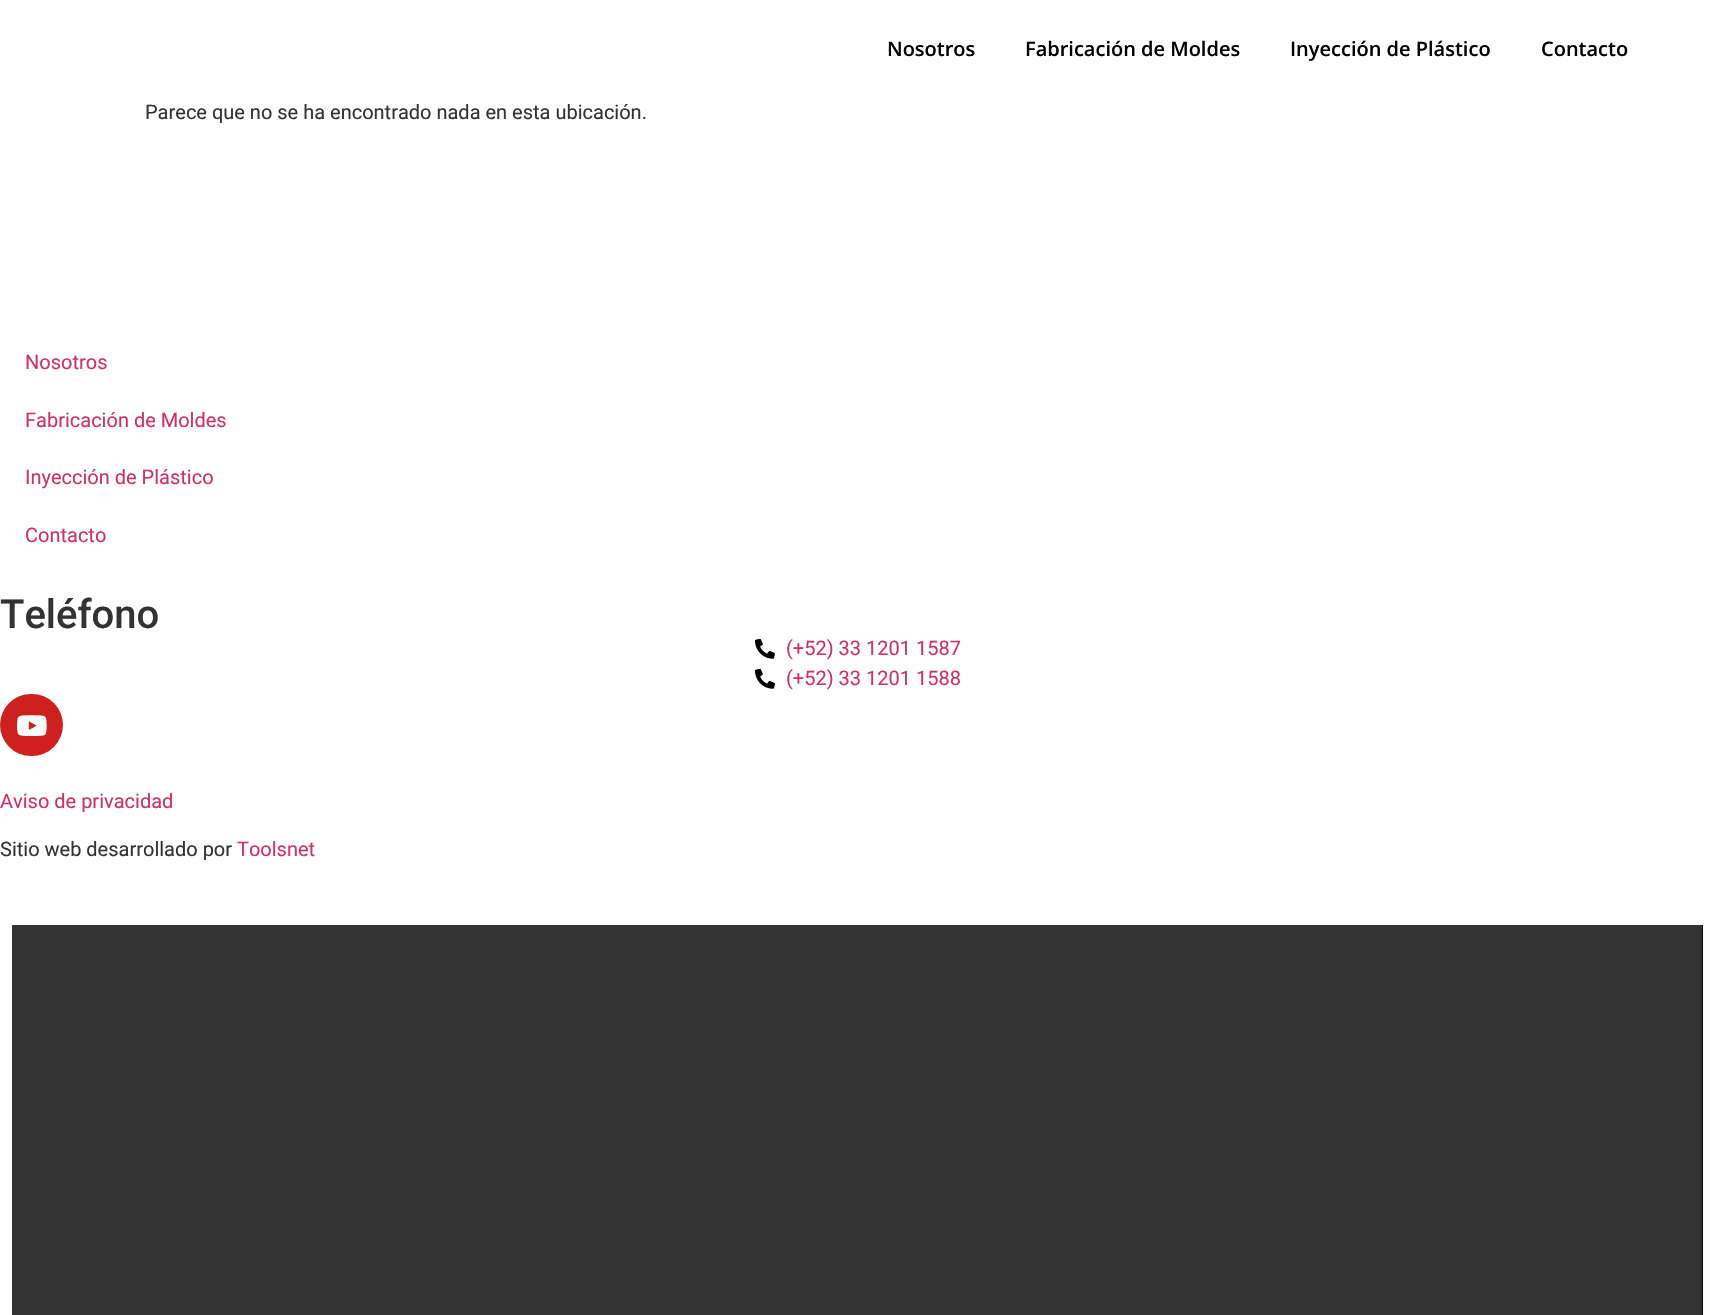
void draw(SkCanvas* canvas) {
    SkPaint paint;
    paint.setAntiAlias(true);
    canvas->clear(0xFFFFFFFF);
    SkFont font1(fontMgr->matchFamilyStyle("Open Sans", SkFontStyle(600, SkFontStyle::kNormal_Width, SkFontStyle::kUpright_Slant)), 20);
    font1.setSubpixel(true);
    paint.setColor(0xFF000000);
    canvas->drawString("Nosotros", 887, 56, font1, paint);
    canvas->drawString("Fabricación de Moldes", 1025, 56, font1, paint);
    canvas->drawString("Inyección de Plástico", 1290, 56, font1, paint);
    canvas->drawString("Contacto", 1541, 56, font1, paint);
    SkFont font2(fontMgr->matchFamilyStyle("Roboto", SkFontStyle::Normal()), 20);
    font2.setSubpixel(true);
    paint.setColor(0xFF333333);
    canvas->drawString("Parece que no se ha encontrado nada en esta ubicación.", 145, 119, font2, paint);
    paint.setColor(0xFFCC3366);
    canvas->drawString("Nosotros", 25, 369, font2, paint);
    canvas->drawString("Fabricación de Moldes", 25, 427, font2, paint);
    canvas->drawString("Inyección de Plástico", 25, 484, font2, paint);
    canvas->drawString("Contacto", 25, 542, font2, paint);
    SkFont font3(fontMgr->matchFamilyStyle("Roboto", SkFontStyle(500, SkFontStyle::kNormal_Width, SkFontStyle::kUpright_Slant)), 40);
    font3.setSubpixel(true);
    paint.setColor(0xFF333333);
    canvas->drawString("Teléfono", 0, 628, font3, paint);
    canvas->drawImageRect(SkImages::DeferredFromEncodedData(SkData::MakeFromFileName("img1.png")), SkRect::MakeXYWH(755, 639, 20, 20), SkSamplingOptions());
    paint.setColor(0xFFCC3366);
    canvas->drawString("(+52) 33 1201 1587", 786, 655, font2, paint);
    canvas->drawImageRect(SkImages::DeferredFromEncodedData(SkData::MakeFromFileName("img1.png")), SkRect::MakeXYWH(755, 669, 20, 20), SkSamplingOptions());
    canvas->drawString("(+52) 33 1201 1588", 786, 685, font2, paint);
    paint.setColor(0xFFCD201F);
    canvas->drawRoundRect(SkRect::MakeXYWH(0, 694, 63, 62), 31, 31, paint);
    canvas->drawImageRect(SkImages::DeferredFromEncodedData(SkData::MakeFromFileName("img2.png")), SkRect::MakeXYWH(17, 715, 30, 22), SkSamplingOptions());
    paint.setColor(0xFFCC3366);
    canvas->drawString("Aviso de privacidad", 0, 808, font2, paint);
    paint.setColor(0xFF333333);
    canvas->drawString("Sitio web desarrollado por", 0, 856, font2, paint);
    paint.setColor(0xFFCC3366);
    canvas->drawString("Toolsnet", 237, 856, font2, paint);
    paint.setColor(0xFF000000);
    canvas->drawRect(SkRect::MakeXYWH(1702, 925, 1, 390), paint);
    paint.setColor(0xFF333333);
    canvas->drawRect(SkRect::MakeXYWH(12, 925, 1690, 390), paint);
}
